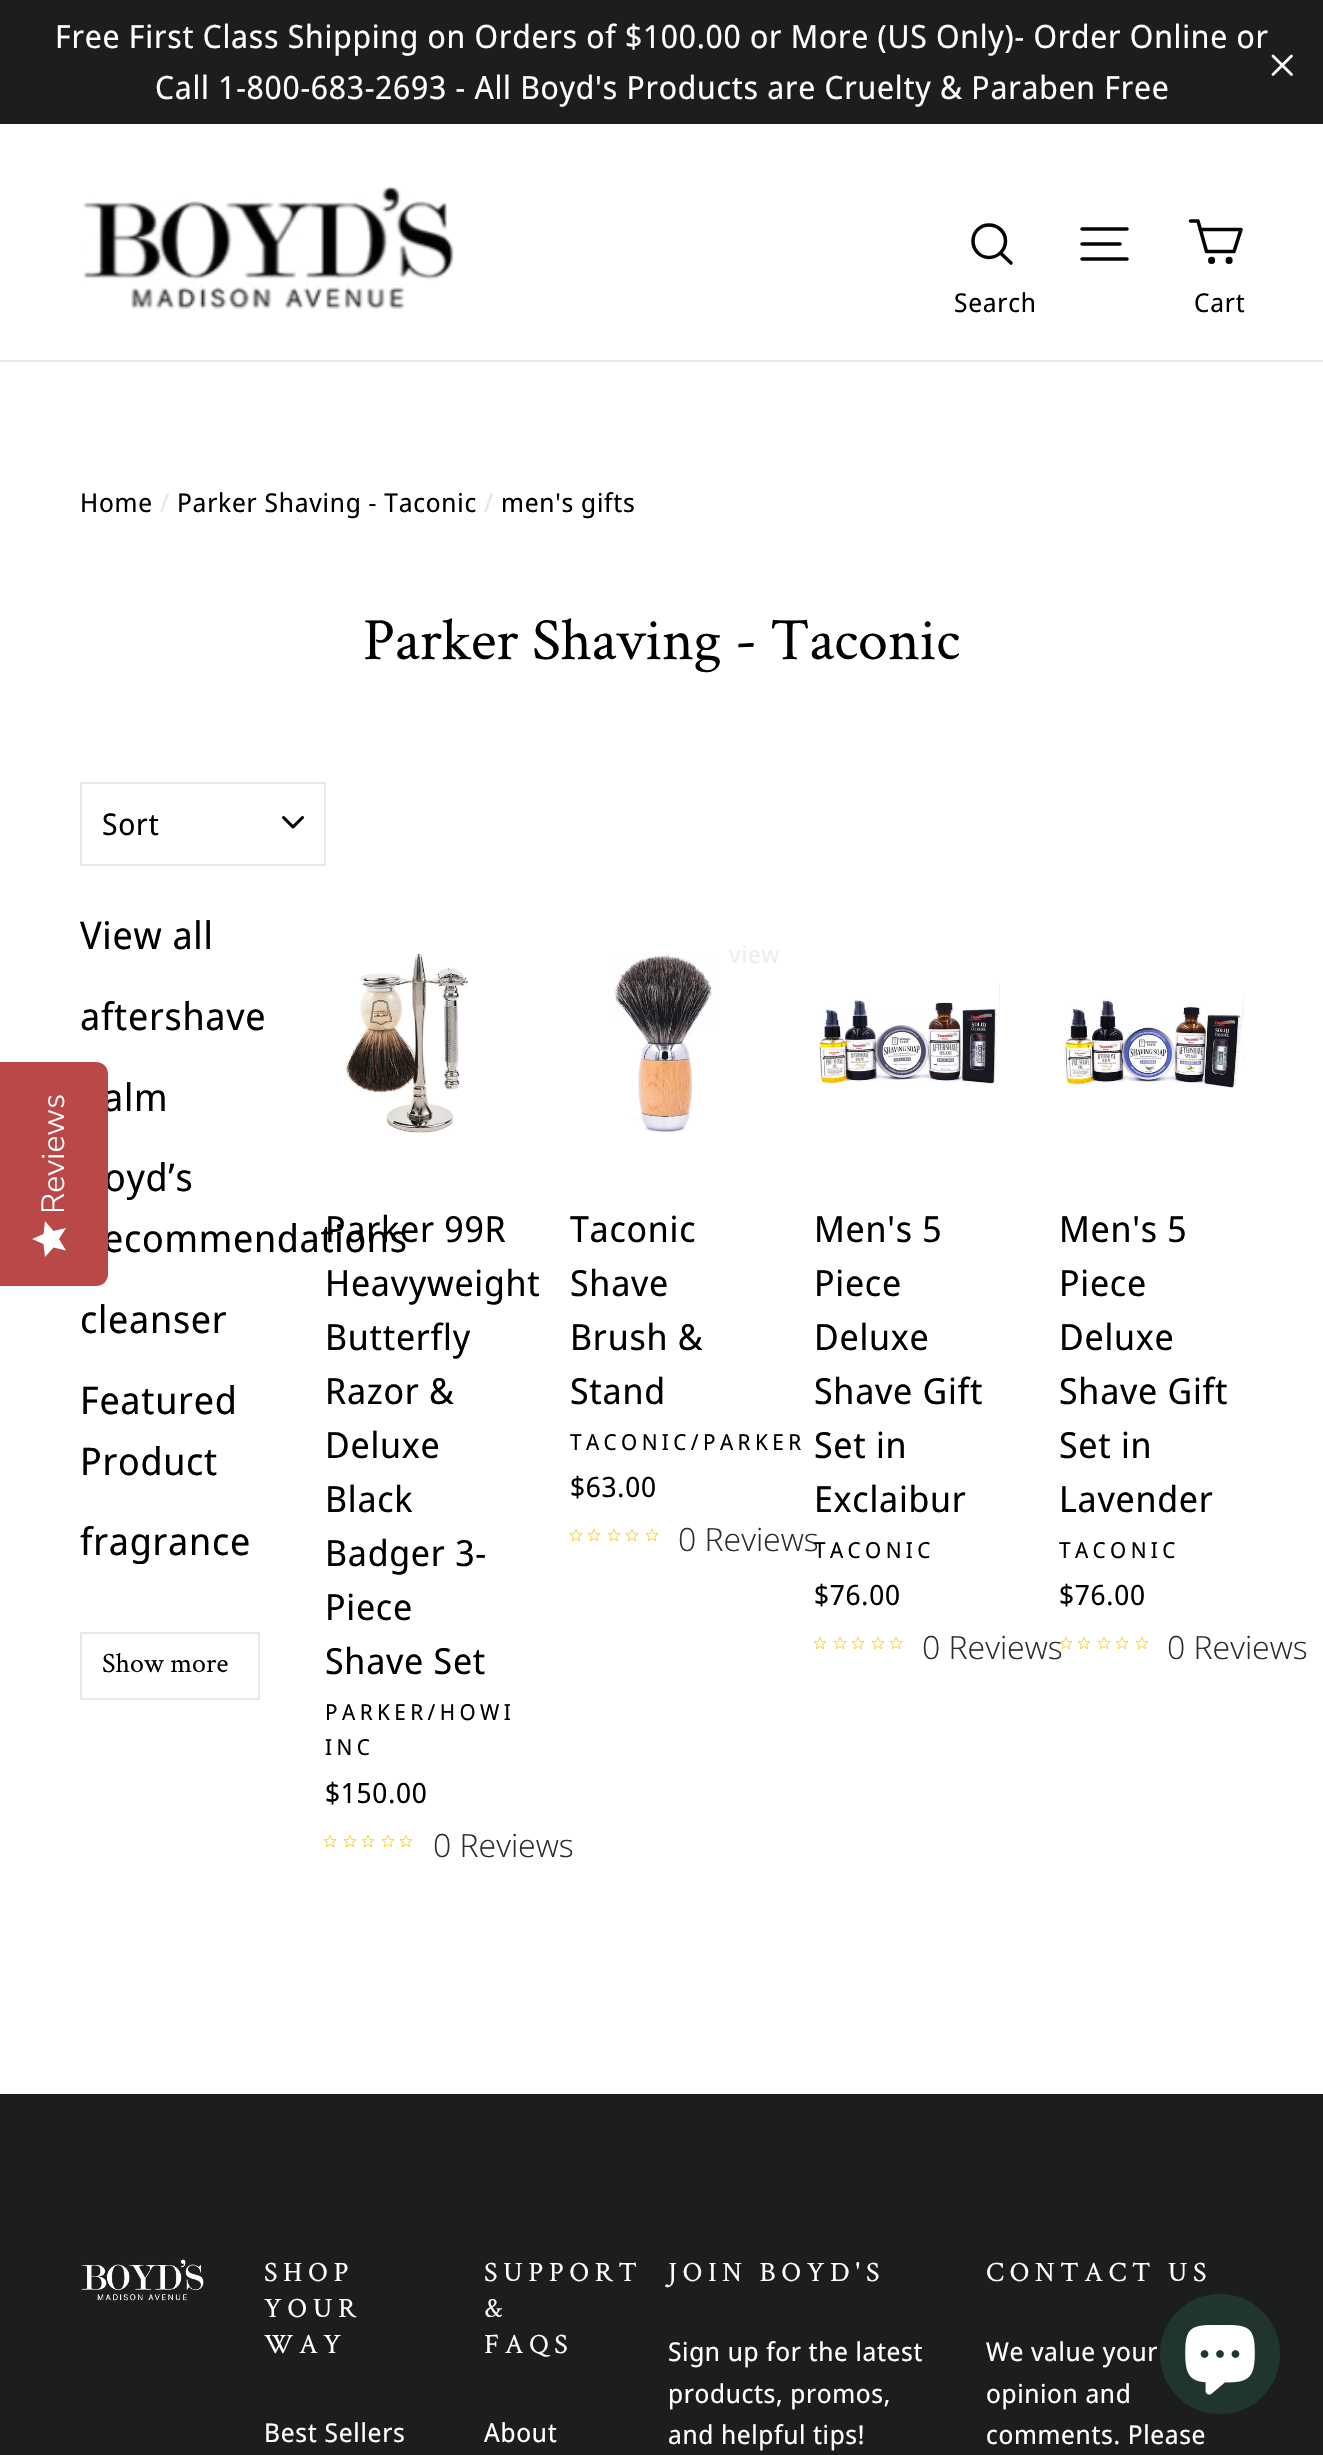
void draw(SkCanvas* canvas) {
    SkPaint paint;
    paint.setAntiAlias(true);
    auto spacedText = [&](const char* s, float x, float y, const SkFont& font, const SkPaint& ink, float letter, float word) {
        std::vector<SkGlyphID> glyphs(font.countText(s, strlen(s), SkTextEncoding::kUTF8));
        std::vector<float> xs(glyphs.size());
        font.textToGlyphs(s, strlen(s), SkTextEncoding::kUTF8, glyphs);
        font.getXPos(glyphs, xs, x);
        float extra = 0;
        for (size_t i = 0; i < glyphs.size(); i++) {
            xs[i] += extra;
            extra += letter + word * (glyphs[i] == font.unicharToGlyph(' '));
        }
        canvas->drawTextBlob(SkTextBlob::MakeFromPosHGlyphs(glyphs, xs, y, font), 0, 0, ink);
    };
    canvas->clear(0xFFFFFFFF);
    SkFont font1(fontMgr->matchFamilyStyle("Noto Sans Display", SkFontStyle::Normal()), 38);
    font1.setSubpixel(true);
    paint.setColor(0xFF000000);
    spacedText("alm", 103, 1111, font1, paint, 0.75f, 0);
    spacedText("oyd’s", 104, 1191, font1, paint, 0.75f, 0);
    spacedText("ecommendations", 103, 1252, font1, paint, 0.75f, 0);
    paint.setColor(0xFFBA4848);
    canvas->drawPath(SkPathBuilder().moveTo(0, 1286).lineTo(0, 1062).lineTo(96, 1062).cubicTo(103, 1062, 108, 1067, 108, 1074).lineTo(108, 1274).cubicTo(108, 1281, 103, 1286, 96, 1286).close().detach(), paint);
    SkFont font2(fontMgr->matchFamilyStyle("Nunito Sans", SkFontStyle(300, SkFontStyle::kNormal_Width, SkFontStyle::kUpright_Slant)), 32);
    font2.setSubpixel(true);
    paint.setColor(0xFFFFFFFF);
    canvas->save();
    canvas->rotate(-90, 64, 1214);
    canvas->drawString("Reviews", 64, 1214, font2, paint);
    canvas->restore();
    {
        const SkColor colors[] = {0xFFFEFEFE, 0xFFEAEAEA};
        const float stops[] = {1, 1};
        const SkPoint ends[] = {{32, 1257}, {32, 1221}};
        paint.setShader(SkGradientShader::MakeLinear(ends, colors, stops, 2, SkTileMode::kClamp));
        paint.setAlpha(255);
    }
    canvas->drawPath(SkPathBuilder().moveTo(59, 1239).lineTo(66, 1228).lineTo(53.5f, 1231).lineTo(45, 1221).lineTo(43.5f, 1234).lineTo(32, 1239).lineTo(43.5f, 1244).lineTo(45, 1257).lineTo(53.5f, 1247.5f).lineTo(66, 1250.5f).close().detach(), paint);
    paint.setShader(nullptr);
    paint.setColor(0xFF1C1D1D);
    canvas->drawRect(SkRect::MakeXYWH(0, 0, 1323, 124), paint);
    SkFont font3(fontMgr->matchFamilyStyle("Noto Sans Display", SkFontStyle::Normal()), 32);
    font3.setSubpixel(true);
    paint.setColor(0xFFFFFFFF);
    spacedText("Free First Class Shipping on Orders of $100.00 or More (US Only)- Order Online or", 55, 48, font3, paint, 0.75f, 0);
    spacedText("Call 1-800-683-2693 - All Boyd's Products are Cruelty & Paraben Free", 155, 99, font3, paint, 0.75f, 0);
    paint.setStyle(SkPaint::kStroke_Style);
    paint.setStrokeWidth(2.8f);
    paint.setStrokeCap(SkPaint::kRound_Cap);
    paint.setStrokeJoin(SkPaint::kRound_Join);
    canvas->drawPath(SkPathBuilder().moveTo(1273, 56).lineTo(1291.5f, 74.5f).moveTo(1291.5f, 56).lineTo(1273, 74.5f).detach(), paint);
    paint.setStyle(SkPaint::kFill_Style);
    paint.setColor(0xFFE8E8E1);
    canvas->drawRect(SkRect::MakeXYWH(0, 360, 1323, 2), paint);
    canvas->drawImageRect(SkImages::DeferredFromEncodedData(SkData::MakeFromFileName("img1.png")), SkRect::MakeXYWH(83, 186, 371, 124), SkSamplingOptions());
    paint.setStyle(SkPaint::kStroke_Style);
    paint.setStrokeWidth(3.5f);
    paint.setColor(0xFF040404);
    canvas->drawPath(SkPathBuilder().moveTo(1082, 229).lineTo(1127, 229).moveTo(1082, 244).lineTo(1120, 244).moveTo(1082, 259).lineTo(1127, 259).detach(), paint);
    canvas->drawPath(SkPathBuilder().moveTo(1005.5f, 241).cubicTo(1005.5f, 250, 998, 257.5f, 989, 257.5f).cubicTo(980, 257.5f, 973, 250, 973, 241).cubicTo(973, 232, 980, 225, 989, 225).cubicTo(998, 225, 1005.5f, 232, 1005.5f, 241).close().moveTo(1011, 263).lineTo(1000.5f, 253).detach(), paint);
    SkFont font4(fontMgr->matchFamilyStyle("Noto Sans Display", SkFontStyle::Normal()), 26);
    font4.setSubpixel(true);
    paint.setStyle(SkPaint::kFill_Style);
    paint.setColor(0xFF000000);
    spacedText("Search", 954, 312, font4, paint, 0.75f, 0);
    paint.setStyle(SkPaint::kStroke_Style);
    paint.setColor(0xFF040404);
    canvas->drawPath(SkPathBuilder().moveTo(1200, 229.5f).lineTo(1241, 229.5f).lineTo(1234, 251.5f).lineTo(1206.5f, 251.5f).lineTo(1198, 221).lineTo(1190.5f, 221).detach(), paint);
    paint.setStrokeCap(SkPaint::kButt_Cap);
    paint.setStrokeJoin(SkPaint::kMiter_Join);
    canvas->drawCircle(1211.6f, 260.4f, 1.8f, paint);
    canvas->drawCircle(1229.1f, 260.4f, 1.8f, paint);
    paint.setStyle(SkPaint::kFill_Style);
    paint.setColor(0xFF000000);
    spacedText("Cart", 1194, 312, font4, paint, 0.75f, 0);
    spacedText("Home", 80, 512, font4, paint, 0.75f, 0);
    paint.setColor(0xFFE8E8E1);
    spacedText("/", 160, 512, font4, paint, 0.75f, 0);
    paint.setColor(0xFF000000);
    spacedText("Parker Shaving - Taconic", 177, 512, font4, paint, 0.75f, 0);
    paint.setColor(0xFFE8E8E1);
    spacedText("/", 484, 512, font4, paint, 0.75f, 0);
    paint.setColor(0xFF000000);
    spacedText("men's gifts", 501, 512, font4, paint, 0.75f, 0);
    SkFont font5(fontMgr->matchFamilyStyle("Crimson Text", SkFontStyle::Normal()), 60);
    font5.setSubpixel(true);
    canvas->drawString("Parker Shaving - Taconic", 363, 659, font5, paint);
    canvas->drawImageRect(SkImages::DeferredFromEncodedData(SkData::MakeFromFileName("img2.png")), SkRect::MakeXYWH(282, 816, 22, 13), SkSamplingOptions());
    paint.setStyle(SkPaint::kStroke_Style);
    paint.setStrokeWidth(2);
    paint.setColor(0xFFE8E8E1);
    canvas->drawRect(SkRect::MakeXYWH(81, 783, 244, 82), paint);
    SkFont font6(fontMgr->matchFamilyStyle("Noto Sans Display", SkFontStyle::Normal()), 30);
    font6.setSubpixel(true);
    paint.setStyle(SkPaint::kFill_Style);
    paint.setColor(0xFF000000);
    spacedText("Sort", 102, 835, font6, paint, 0.75f, 0);
    spacedText("View all", 80, 949, font1, paint, 0.75f, 0);
    spacedText("aftershave", 80, 1030, font1, paint, 0.75f, 0);
    spacedText("cleanser", 80, 1333, font1, paint, 0.75f, 0);
    spacedText("Featured", 80, 1414, font1, paint, 0.75f, 0);
    spacedText("Product", 80, 1475, font1, paint, 0.75f, 0);
    spacedText("fragrance", 80, 1555, font1, paint, 0.75f, 0);
    paint.setStyle(SkPaint::kStroke_Style);
    paint.setColor(0xFFE8E8E1);
    canvas->drawRect(SkRect::MakeXYWH(81, 1633, 178, 66), paint);
    SkFont font7(fontMgr->matchFamilyStyle("Crimson Text", SkFontStyle::Normal()), 28);
    font7.setSubpixel(true);
    paint.setStyle(SkPaint::kFill_Style);
    paint.setColor(0xFF000000);
    canvas->drawString("Show more", 102, 1672, font7, paint);
    canvas->drawImageRect(SkImages::DeferredFromEncodedData(SkData::MakeFromFileName("img3.png")), SkRect::MakeXYWH(344, 953, 125, 182), SkSamplingOptions());
    SkFont font8(fontMgr->matchFamilyStyle("Noto Sans Display", SkFontStyle::Normal()), 36);
    font8.setSubpixel(true);
    spacedText("Parker 99R", 325, 1242, font8, paint, 0.75f, 0);
    spacedText("Heavyweight", 325, 1296, font8, paint, 0.75f, 0);
    spacedText("Butterfly", 325, 1350, font8, paint, 0.75f, 0);
    spacedText("Razor &", 325, 1404, font8, paint, 0.75f, 0);
    spacedText("Deluxe", 325, 1458, font8, paint, 0.75f, 0);
    spacedText("Black", 325, 1512, font8, paint, 0.75f, 0);
    spacedText("Badger 3-", 325, 1566, font8, paint, 0.75f, 0);
    spacedText("Piece", 325, 1620, font8, paint, 0.75f, 0);
    spacedText("Shave Set", 325, 1674, font8, paint, 0.75f, 0);
    SkFont font9(fontMgr->matchFamilyStyle("Noto Sans Display", SkFontStyle::Normal()), 22);
    font9.setSubpixel(true);
    spacedText("PARKER/HOWI", 325, 1720, font9, paint, 4.4f, 0);
    spacedText("INC", 325, 1755, font9, paint, 4.4f, 0);
    SkFont font10(fontMgr->matchFamilyStyle("Noto Sans Display", SkFontStyle::Normal()), 28);
    font10.setSubpixel(true);
    spacedText("$150.00", 325, 1803, font10, paint, 0.75f, 0);
    canvas->drawImageRect(SkImages::DeferredFromEncodedData(SkData::MakeFromFileName("img4.png")), SkRect::MakeXYWH(324, 1834, 12, 14), SkSamplingOptions());
    canvas->drawImageRect(SkImages::DeferredFromEncodedData(SkData::MakeFromFileName("img4.png")), SkRect::MakeXYWH(344, 1834, 12, 14), SkSamplingOptions());
    canvas->drawImageRect(SkImages::DeferredFromEncodedData(SkData::MakeFromFileName("img4.png")), SkRect::MakeXYWH(362, 1834, 12, 14), SkSamplingOptions());
    canvas->drawImageRect(SkImages::DeferredFromEncodedData(SkData::MakeFromFileName("img4.png")), SkRect::MakeXYWH(382, 1834, 12, 14), SkSamplingOptions());
    canvas->drawImageRect(SkImages::DeferredFromEncodedData(SkData::MakeFromFileName("img4.png")), SkRect::MakeXYWH(400, 1834, 12, 14), SkSamplingOptions());
    SkFont font11(fontMgr->matchFamilyStyle("Open Sans", SkFontStyle(300, SkFontStyle::kNormal_Width, SkFontStyle::kUpright_Slant)), 32);
    font11.setSubpixel(true);
    paint.setColor(0xFF2C2C2C);
    canvas->drawString("0 Reviews", 433, 1857, font11, paint);
    SkFont font12(fontMgr->matchFamilyStyle("Noto Sans Display", SkFontStyle::Normal()), 24);
    font12.setSubpixel(true);
    paint.setColor(0xFFEFEEEE);
    spacedText("view", 729, 963, font12, paint, 0.75f, 0);
    canvas->drawImageRect(SkImages::DeferredFromEncodedData(SkData::MakeFromFileName("img5.png")), SkRect::MakeXYWH(613, 954, 100, 179), SkSamplingOptions());
    paint.setColor(0xFF000000);
    spacedText("Taconic", 570, 1242, font8, paint, 0.75f, 0);
    spacedText("Shave", 570, 1296, font8, paint, 0.75f, 0);
    spacedText("Brush &", 570, 1350, font8, paint, 0.75f, 0);
    spacedText("Stand", 570, 1404, font8, paint, 0.75f, 0);
    spacedText("TACONIC/PARKER", 570, 1450, font9, paint, 4.4f, 0);
    spacedText("$63.00", 570, 1497, font10, paint, 0.75f, 0);
    canvas->drawImageRect(SkImages::DeferredFromEncodedData(SkData::MakeFromFileName("img4.png")), SkRect::MakeXYWH(570, 1528, 12, 14), SkSamplingOptions());
    canvas->drawImageRect(SkImages::DeferredFromEncodedData(SkData::MakeFromFileName("img4.png")), SkRect::MakeXYWH(588, 1528, 12, 14), SkSamplingOptions());
    canvas->drawImageRect(SkImages::DeferredFromEncodedData(SkData::MakeFromFileName("img4.png")), SkRect::MakeXYWH(608, 1528, 12, 14), SkSamplingOptions());
    canvas->drawImageRect(SkImages::DeferredFromEncodedData(SkData::MakeFromFileName("img4.png")), SkRect::MakeXYWH(626, 1528, 12, 14), SkSamplingOptions());
    canvas->drawImageRect(SkImages::DeferredFromEncodedData(SkData::MakeFromFileName("img4.png")), SkRect::MakeXYWH(646, 1528, 12, 14), SkSamplingOptions());
    paint.setColor(0xFF2C2C2C);
    canvas->drawString("0 Reviews", 678, 1551, font11, paint);
    canvas->drawImageRect(SkImages::DeferredFromEncodedData(SkData::MakeFromFileName("img6.png")), SkRect::MakeXYWH(818, 983, 182, 103), SkSamplingOptions());
    paint.setColor(0xFF000000);
    spacedText("Men's 5", 814, 1242, font8, paint, 0.75f, 0);
    spacedText("Piece", 814, 1296, font8, paint, 0.75f, 0);
    spacedText("Deluxe", 814, 1350, font8, paint, 0.75f, 0);
    spacedText("Shave Gift", 814, 1404, font8, paint, 0.75f, 0);
    spacedText("Set in", 814, 1458, font8, paint, 0.75f, 0);
    spacedText("Exclaibur", 814, 1512, font8, paint, 0.75f, 0);
    spacedText("TACONIC", 814, 1558, font9, paint, 4.4f, 0);
    spacedText("$76.00", 814, 1605, font10, paint, 0.75f, 0);
    canvas->drawImageRect(SkImages::DeferredFromEncodedData(SkData::MakeFromFileName("img4.png")), SkRect::MakeXYWH(814, 1636, 12, 14), SkSamplingOptions());
    canvas->drawImageRect(SkImages::DeferredFromEncodedData(SkData::MakeFromFileName("img4.png")), SkRect::MakeXYWH(834, 1636, 12, 14), SkSamplingOptions());
    canvas->drawImageRect(SkImages::DeferredFromEncodedData(SkData::MakeFromFileName("img4.png")), SkRect::MakeXYWH(852, 1636, 12, 14), SkSamplingOptions());
    canvas->drawImageRect(SkImages::DeferredFromEncodedData(SkData::MakeFromFileName("img4.png")), SkRect::MakeXYWH(872, 1636, 12, 14), SkSamplingOptions());
    canvas->drawImageRect(SkImages::DeferredFromEncodedData(SkData::MakeFromFileName("img4.png")), SkRect::MakeXYWH(890, 1636, 12, 14), SkSamplingOptions());
    paint.setColor(0xFF2C2C2C);
    canvas->drawString("0 Reviews", 922, 1659, font11, paint);
    canvas->drawImageRect(SkImages::DeferredFromEncodedData(SkData::MakeFromFileName("img7.png")), SkRect::MakeXYWH(1064, 993, 180, 95), SkSamplingOptions());
    paint.setColor(0xFF000000);
    spacedText("Men's 5", 1059, 1242, font8, paint, 0.75f, 0);
    spacedText("Piece", 1059, 1296, font8, paint, 0.75f, 0);
    spacedText("Deluxe", 1059, 1350, font8, paint, 0.75f, 0);
    spacedText("Shave Gift", 1059, 1404, font8, paint, 0.75f, 0);
    spacedText("Set in", 1059, 1458, font8, paint, 0.75f, 0);
    spacedText("Lavender", 1059, 1512, font8, paint, 0.75f, 0);
    spacedText("TACONIC", 1059, 1558, font9, paint, 4.4f, 0);
    spacedText("$76.00", 1059, 1605, font10, paint, 0.75f, 0);
    canvas->drawImageRect(SkImages::DeferredFromEncodedData(SkData::MakeFromFileName("img8.png")), SkRect::MakeXYWH(1060, 1636, 12, 14), SkSamplingOptions());
    canvas->drawImageRect(SkImages::DeferredFromEncodedData(SkData::MakeFromFileName("img4.png")), SkRect::MakeXYWH(1078, 1636, 12, 14), SkSamplingOptions());
    canvas->drawImageRect(SkImages::DeferredFromEncodedData(SkData::MakeFromFileName("img4.png")), SkRect::MakeXYWH(1098, 1636, 12, 14), SkSamplingOptions());
    canvas->drawImageRect(SkImages::DeferredFromEncodedData(SkData::MakeFromFileName("img4.png")), SkRect::MakeXYWH(1116, 1636, 12, 14), SkSamplingOptions());
    canvas->drawImageRect(SkImages::DeferredFromEncodedData(SkData::MakeFromFileName("img4.png")), SkRect::MakeXYWH(1136, 1636, 12, 14), SkSamplingOptions());
    paint.setColor(0xFF2C2C2C);
    canvas->drawString("0 Reviews", 1167, 1659, font11, paint);
    paint.setColor(0xFF1C1D1D);
    canvas->drawRect(SkRect::MakeXYWH(0, 2094, 1323, 361), paint);
    canvas->drawImageRect(SkImages::DeferredFromEncodedData(SkData::MakeFromFileName("img9.png")), SkRect::MakeXYWH(81, 2259, 123, 42), SkSamplingOptions());
    paint.setColor(0xFFFFFFFF);
    spacedText("SHOP", 264, 2281, font7, paint, 5.6f, 0);
    spacedText("YOUR", 264, 2317, font7, paint, 5.6f, 0);
    spacedText("WAY", 264, 2353, font7, paint, 5.6f, 0);
    spacedText("Best Sellers", 264, 2442, font4, paint, 0.75f, 0);
    spacedText("SUPPORT", 484, 2281, font7, paint, 5.6f, 0);
    spacedText("&", 484, 2317, font7, paint, 5.6f, 0);
    spacedText("FAQS", 484, 2353, font7, paint, 5.6f, 0);
    spacedText("About", 484, 2442, font4, paint, 0.75f, 0);
    spacedText("JOIN BOYD'S", 668, 2281, font7, paint, 5.6f, 0);
    spacedText("Sign up for the latest", 668, 2361, font4, paint, 0.65f, 0);
    spacedText("products, promos,", 668, 2403, font4, paint, 0.65f, 0);
    spacedText("and helpful tips!", 668, 2444, font4, paint, 0.65f, 0);
    spacedText("CONTACT US", 986, 2281, font7, paint, 5.6f, 0);
    spacedText("We value your", 986, 2361, font4, paint, 0.65f, 0);
    spacedText("opinion and", 986, 2403, font4, paint, 0.65f, 0);
    spacedText("comments. Please", 986, 2444, font4, paint, 0.65f, 0);
    paint.setColor(0xFF20362D);
    canvas->drawCircle(1220, 2354, 60, paint);
    canvas->drawImageRect(SkImages::DeferredFromEncodedData(SkData::MakeFromFileName("img10.png")), SkRect::MakeXYWH(1185, 2325, 70, 70), SkSamplingOptions());
}
